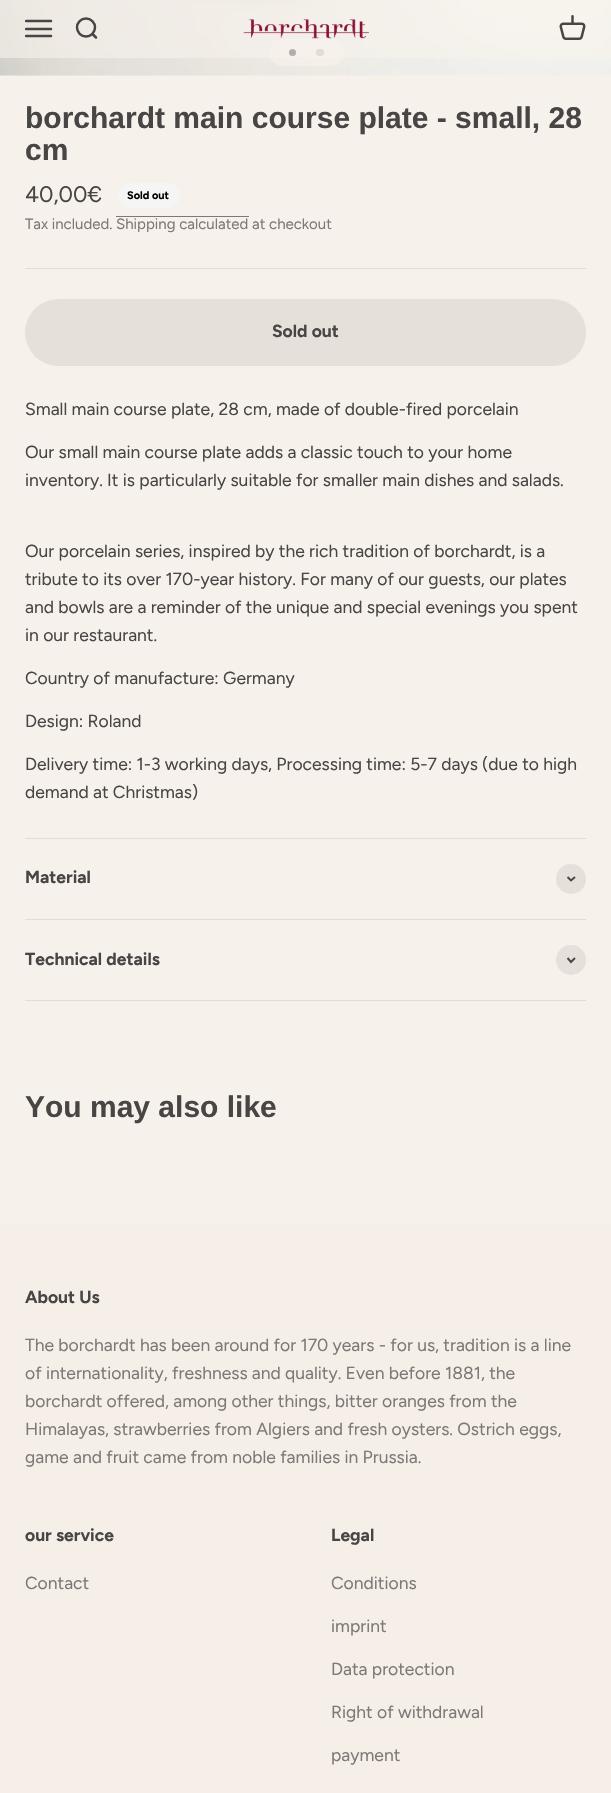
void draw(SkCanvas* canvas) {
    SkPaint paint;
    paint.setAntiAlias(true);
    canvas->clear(0xFFF7F1EB);
    canvas->drawImageRect(SkImages::DeferredFromEncodedData(SkData::MakeFromFileName("img3.png")), SkRect::MakeXYWH(0, 0, 611, 76), SkSamplingOptions());
    paint.setColor(0xB3F7F1EB);
    canvas->drawRoundRect(SkRect::MakeXYWH(269, 39, 75, 27), 13.5f, 13.5f, paint);
    paint.setColor(0xFF484545);
    canvas->drawCircle(292.5f, 52.5f, 3.5f, paint);
    paint.setColor(0xFFC0BCB8);
    canvas->drawRoundRect(SkRect::MakeXYWH(316, 49, 8, 7), 3.5f, 3.5f, paint);
    paint.setColor(0x99F7F1EB);
    canvas->drawRect(SkRect::MakeXYWH(0, 0, 611, 58), paint);
    canvas->save();
    canvas->clipRect(SkRect::MakeXYWH(25, 15, 28, 28));
    paint.setStyle(SkPaint::kStroke_Style);
    paint.setStrokeWidth(2.5f);
    paint.setStrokeCap(SkPaint::kRound_Cap);
    paint.setColor(0xFF484545);
    canvas->drawPath(SkPathBuilder().moveTo(26, 21).lineTo(51, 21).moveTo(26, 29).lineTo(51, 29).moveTo(26, 36).lineTo(51, 36).detach(), paint);
    canvas->restore();
    paint.setStrokeCap(SkPaint::kButt_Cap);
    canvas->drawCircle(86, 27.5f, 9, paint);
    paint.setStrokeCap(SkPaint::kRound_Cap);
    paint.setStrokeJoin(SkPaint::kRound_Join);
    canvas->drawPath(SkPathBuilder().moveTo(92.5f, 34).lineTo(96, 37.5f).detach(), paint);
    canvas->drawImageRect(SkImages::DeferredFromEncodedData(SkData::MakeFromFileName("img1.png")), SkRect::MakeXYWH(243, 19, 126, 20), SkSamplingOptions());
    canvas->drawImageRect(SkImages::DeferredFromEncodedData(SkData::MakeFromFileName("img2.png")), SkRect::MakeXYWH(559, 15, 27, 25), SkSamplingOptions());
    SkFont font1(fontMgr->matchFamilyStyle("Liberation Sans", SkFontStyle::Bold()), 30);
    font1.setSubpixel(true);
    paint.setStyle(SkPaint::kFill_Style);
    canvas->drawString("borchardt main course plate - small, 28", 25, 128, font1, paint);
    canvas->drawString("cm", 25, 160, font1, paint);
    SkFont font2(fontMgr->matchFamilyStyle("Figtree", SkFontStyle::Normal()), 22.5f);
    font2.setSubpixel(true);
    canvas->drawString("40,00€", 25, 202, font2, paint);
    paint.setColor(0xFFF5F5F5);
    canvas->drawRoundRect(SkRect::MakeXYWH(118, 183, 62, 25), 12.5f, 12.5f, paint);
    SkFont font3(fontMgr->matchFamilyStyle("Figtree", SkFontStyle::Bold()), 11);
    font3.setSubpixel(true);
    paint.setColor(0xFF000000);
    canvas->drawString("Sold out", 127, 199, font3, paint);
    paint.setColor(0xFF7D7977);
    canvas->drawRect(SkRect::MakeXYWH(116, 216, 133, 1), paint);
    SkFont font4(fontMgr->matchFamilyStyle("Figtree", SkFontStyle::Normal()), 15);
    font4.setSubpixel(true);
    canvas->drawString("Tax included. Shipping calculated at checkout", 25, 229, font4, paint);
    paint.setColor(0xFFE2DCD7);
    canvas->drawRect(SkRect::MakeXYWH(25, 268, 561, 1), paint);
    paint.setColor(0xFFE5E0DA);
    canvas->drawRoundRect(SkRect::MakeXYWH(25, 299, 561, 67), 33.5f, 33.5f, paint);
    SkFont font5(fontMgr->matchFamilyStyle("Figtree", SkFontStyle::Bold()), 17.5f);
    font5.setSubpixel(true);
    paint.setColor(0xFF484545);
    canvas->drawString("Sold out", 272, 337, font5, paint);
    SkFont font6(fontMgr->matchFamilyStyle("Figtree", SkFontStyle::Normal()), 17.5f);
    font6.setSubpixel(true);
    canvas->drawString("Small main course plate, 28 cm, made of double-fired porcelain", 25, 415, font6, paint);
    canvas->drawString("Our small main course plate adds a classic touch to your home", 25, 458, font6, paint);
    canvas->drawString("inventory. It is particularly suitable for smaller main dishes and salads.", 25, 486, font6, paint);
    canvas->drawString("Our porcelain series, inspired by the rich tradition of borchardt, is a", 25, 557, font6, paint);
    canvas->drawString("tribute to its over 170-year history. For many of our guests, our plates", 25, 585, font6, paint);
    canvas->drawString("and bowls are a reminder of the unique and special evenings you spent", 25, 613, font6, paint);
    canvas->drawString("in our restaurant.", 25, 641, font6, paint);
    canvas->drawString("Country of manufacture: Germany", 25, 684, font6, paint);
    canvas->drawString("Design: Roland", 25, 727, font6, paint);
    canvas->drawString("Delivery time: 1-3 working days, Processing time: 5-7 days (due to high", 25, 770, font6, paint);
    canvas->drawString("demand at Christmas)", 25, 798, font6, paint);
    paint.setColor(0xFFE2DCD7);
    canvas->drawRect(SkRect::MakeXYWH(25, 838, 561, 1), paint);
    canvas->drawRect(SkRect::MakeXYWH(25, 919, 561, 1), paint);
    paint.setColor(0xFF484545);
    canvas->drawString("Material", 25, 883, font5, paint);
    paint.setColor(0xFFE5E0DA);
    canvas->drawCircle(571, 879, 15, paint);
    paint.setStyle(SkPaint::kStroke_Style);
    paint.setStrokeWidth(1.9f);
    paint.setStrokeCap(SkPaint::kButt_Cap);
    paint.setStrokeJoin(SkPaint::kMiter_Join);
    paint.setColor(0xFF484545);
    canvas->drawPath(SkPathBuilder().moveTo(567.5f, 877).lineTo(571, 880.5f).lineTo(575, 877).detach(), paint);
    paint.setStyle(SkPaint::kFill_Style);
    paint.setColor(0xFFE2DCD7);
    canvas->drawRect(SkRect::MakeXYWH(25, 1000, 561, 1), paint);
    paint.setColor(0xFF484545);
    canvas->drawString("Technical details", 25, 965, font5, paint);
    paint.setColor(0xFFE5E0DA);
    canvas->drawCircle(571, 960, 15, paint);
    paint.setStyle(SkPaint::kStroke_Style);
    paint.setColor(0xFF484545);
    canvas->drawPath(SkPathBuilder().moveTo(567.5f, 958).lineTo(571, 962).lineTo(575, 958).detach(), paint);
    paint.setStyle(SkPaint::kFill_Style);
    canvas->drawString("You may also like", 25, 1117, font1, paint);
    paint.setColor(0xFFF5EFE8);
    canvas->drawRect(SkRect::MakeXYWH(0, 1224, 611, 569), paint);
    paint.setColor(0xFF484545);
    canvas->drawString("About Us", 25, 1303, font5, paint);
    paint.setColor(0xFF7D7977);
    canvas->drawString("The borchardt has been around for 170 years - for us, tradition is a line", 25, 1351, font6, paint);
    canvas->drawString("of internationality, freshness and quality. Even before 1881, the", 25, 1379, font6, paint);
    canvas->drawString("borchardt offered, among other things, bitter oranges from the", 25, 1407, font6, paint);
    canvas->drawString("Himalayas, strawberries from Algiers and fresh oysters. Ostrich eggs,", 25, 1435, font6, paint);
    canvas->drawString("game and fruit came from noble families in Prussia.", 25, 1463, font6, paint);
    paint.setColor(0xFF484545);
    canvas->drawString("our service", 25, 1541, font5, paint);
    paint.setColor(0xFF7D7977);
    canvas->drawString("Contact", 25, 1589, font6, paint);
    paint.setColor(0xFF484545);
    canvas->drawString("Legal", 331, 1541, font5, paint);
    paint.setColor(0xFF7D7977);
    canvas->drawString("Conditions", 331, 1589, font6, paint);
    canvas->drawString("imprint", 331, 1632, font6, paint);
    canvas->drawString("Data protection", 331, 1675, font6, paint);
    canvas->drawString("Right of withdrawal", 331, 1718, font6, paint);
    canvas->drawString("payment", 331, 1761, font6, paint);
}
